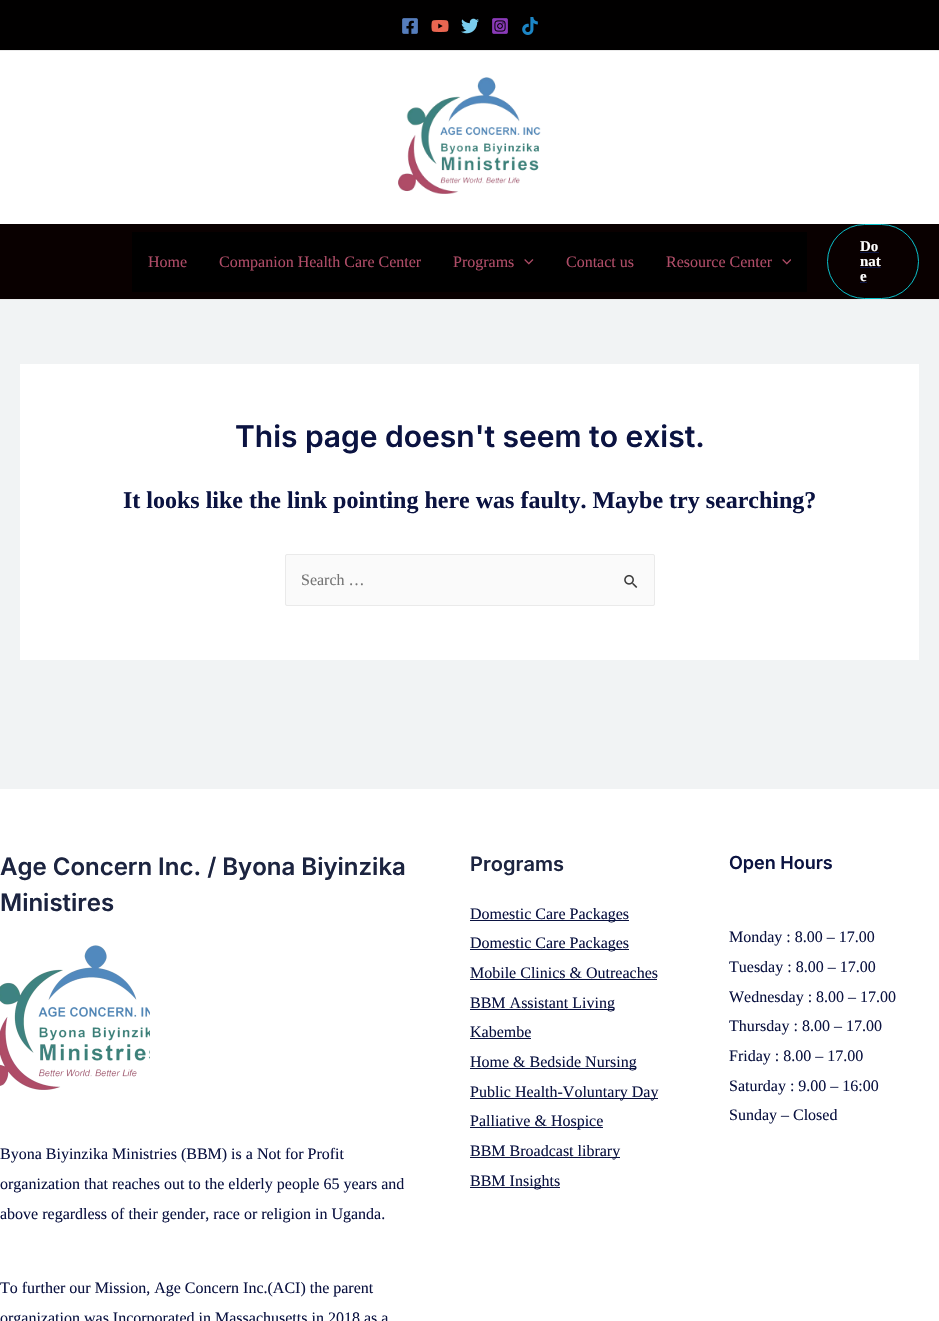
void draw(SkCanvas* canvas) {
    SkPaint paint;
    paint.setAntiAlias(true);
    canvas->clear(0xFFF1F3F4);
    paint.setColor(0xFF010000);
    canvas->drawRect(SkRect::MakeXYWH(0, 0, 939, 50), paint);
    paint.setColor(0xFFEAEAEA);
    canvas->drawRect(SkRect::MakeXYWH(0, 50, 939, 1), paint);
    canvas->drawImageRect(SkImages::DeferredFromEncodedData(SkData::MakeFromFileName("img1.png")), SkRect::MakeXYWH(402, 18, 16, 16), SkSamplingOptions());
    canvas->drawImageRect(SkImages::DeferredFromEncodedData(SkData::MakeFromFileName("img2.png")), SkRect::MakeXYWH(431, 20, 18, 12), SkSamplingOptions());
    canvas->drawImageRect(SkImages::DeferredFromEncodedData(SkData::MakeFromFileName("img3.png")), SkRect::MakeXYWH(461, 18, 18, 16), SkSamplingOptions());
    canvas->drawImageRect(SkImages::DeferredFromEncodedData(SkData::MakeFromFileName("img4.png")), SkRect::MakeXYWH(492, 18, 16, 16), SkSamplingOptions());
    canvas->drawImageRect(SkImages::DeferredFromEncodedData(SkData::MakeFromFileName("img5.png")), SkRect::MakeXYWH(522, 17, 16, 18), SkSamplingOptions());
    paint.setColor(0xFFFFFFFF);
    canvas->drawRect(SkRect::MakeXYWH(0, 51, 939, 173), paint);
    canvas->drawImageRect(SkImages::DeferredFromEncodedData(SkData::MakeFromFileName("img6.png")), SkRect::MakeXYWH(398, 77, 143, 117), SkSamplingOptions());
    paint.setColor(0xFF090000);
    canvas->drawRect(SkRect::MakeXYWH(0, 224, 939, 75), paint);
    paint.setColor(0xFFEAEAEA);
    canvas->drawRect(SkRect::MakeXYWH(0, 299, 939, 1), paint);
    paint.setColor(0xFF000000);
    canvas->drawRect(SkRect::MakeXYWH(132, 232, 675, 60), paint);
    SkFont font1(fontMgr->matchFamilyStyle("Liberation Serif", SkFontStyle::Normal()), 16);
    font1.setSubpixel(true);
    paint.setColor(0xFFAF4C67);
    canvas->drawString("Home", 148, 267, font1, paint);
    canvas->drawString("Companion Health Care Center", 219, 267, font1, paint);
    canvas->drawString("Programs", 453, 267, font1, paint);
    canvas->drawImageRect(SkImages::DeferredFromEncodedData(SkData::MakeFromFileName("img7.png")), SkRect::MakeXYWH(524, 259, 10, 6), SkSamplingOptions());
    canvas->drawString("Contact us", 566, 267, font1, paint);
    canvas->drawString("Resource Center", 666, 267, font1, paint);
    canvas->drawImageRect(SkImages::DeferredFromEncodedData(SkData::MakeFromFileName("img8.png")), SkRect::MakeXYWH(782, 259, 9, 6), SkSamplingOptions());
    paint.setStyle(SkPaint::kStroke_Style);
    paint.setStrokeWidth(1);
    paint.setColor(0xFF08C0CA);
    canvas->drawRoundRect(SkRect::MakeXYWH(827.5f, 224.5f, 91, 74), 37, 37, paint);
    SkFont font2(fontMgr->matchFamilyStyle("Liberation Serif", SkFontStyle::Bold()), 15);
    font2.setSubpixel(true);
    paint.setStyle(SkPaint::kFill_Style);
    paint.setColor(0xFFFDFDFD);
    canvas->drawString("Do", 860, 251, font2, paint);
    paint.setColor(0xFF0B1341);
    canvas->drawRect(SkRect::MakeXYWH(860, 252, 19, 1), paint);
    paint.setColor(0xFFFDFDFD);
    canvas->drawString("nat", 860, 266, font2, paint);
    paint.setColor(0xFF0B1341);
    canvas->drawRect(SkRect::MakeXYWH(860, 267, 21, 1), paint);
    paint.setColor(0xFFFDFDFD);
    canvas->drawString("e", 860, 281, font2, paint);
    paint.setColor(0xFF0B1341);
    canvas->drawRect(SkRect::MakeXYWH(860, 282, 7, 1), paint);
    paint.setColor(0xFFFFFFFF);
    canvas->drawRect(SkRect::MakeXYWH(20, 364, 899, 296), paint);
    SkFont font3(fontMgr->matchFamilyStyle("Inter", SkFontStyle(600, SkFontStyle::kNormal_Width, SkFontStyle::kUpright_Slant)), 30);
    font3.setSubpixel(true);
    paint.setColor(0xFF0B1341);
    canvas->drawString("This page doesn't seem to exist.", 235, 447, font3, paint);
    SkFont font4(fontMgr->matchFamilyStyle("Liberation Serif", SkFontStyle::Bold()), 24);
    font4.setSubpixel(true);
    canvas->drawString("It looks like the link pointing here was faulty. Maybe try searching?", 123, 508, font4, paint);
    paint.setColor(0xFFFAFAFA);
    canvas->drawRoundRect(SkRect::MakeXYWH(285.5f, 554.5f, 369, 51), 1.5f, 1.5f, paint);
    paint.setStyle(SkPaint::kStroke_Style);
    paint.setColor(0xFFEAEAEA);
    canvas->drawRoundRect(SkRect::MakeXYWH(285.5f, 554.5f, 369, 51), 1.5f, 1.5f, paint);
    paint.setStyle(SkPaint::kFill_Style);
    paint.setColor(0xFF757575);
    canvas->drawString("Search …", 301, 585, font1, paint);
    canvas->drawImageRect(SkImages::DeferredFromEncodedData(SkData::MakeFromFileName("img9.png")), SkRect::MakeXYWH(624, 574, 14, 14), SkSamplingOptions());
    paint.setColor(0xFFFFFFFF);
    canvas->drawRect(SkRect::MakeXYWH(0, 789, 939, 532), paint);
    SkFont font5(fontMgr->matchFamilyStyle("Inter", SkFontStyle(600, SkFontStyle::kNormal_Width, SkFontStyle::kUpright_Slant)), 24);
    font5.setSubpixel(true);
    paint.setColor(0xFF1C2440);
    canvas->drawString("Age Concern Inc. / Byona Biyinzika", 0, 875, font5, paint);
    canvas->drawString("Ministires", 0, 911, font5, paint);
    canvas->drawImageRect(SkImages::DeferredFromEncodedData(SkData::MakeFromFileName("img10.png")), SkRect::MakeXYWH(0, 945, 150, 145), SkSamplingOptions());
    paint.setColor(0xFF0B1341);
    canvas->drawString("Byona Biyinzika Ministries (BBM) is a Not for Profit", 0, 1159, font1, paint);
    canvas->drawString("organization that reaches out to the elderly people 65 years and", 0, 1189, font1, paint);
    canvas->drawString("above regardless of their gender, race or religion in Uganda.", 0, 1219, font1, paint);
    canvas->drawString("To further our Mission, Age Concern Inc.(ACI) the parent", 0, 1293, font1, paint);
    canvas->drawString("organization was Incorporated in Massachusetts in 2018 as a", 0, 1323, font1, paint);
    SkFont font6(fontMgr->matchFamilyStyle("Inter", SkFontStyle(600, SkFontStyle::kNormal_Width, SkFontStyle::kUpright_Slant)), 20);
    font6.setSubpixel(true);
    paint.setColor(0xFF1C2440);
    canvas->drawString("Programs", 470, 871, font6, paint);
    paint.setColor(0xFF0B1341);
    canvas->drawRect(SkRect::MakeXYWH(470, 920, 159, 1), paint);
    canvas->drawString("Domestic Care Packages", 470, 919, font1, paint);
    canvas->drawRect(SkRect::MakeXYWH(470, 949, 159, 1), paint);
    canvas->drawString("Domestic Care Packages", 470, 948, font1, paint);
    canvas->drawString("Mobile Clinics & Outreaches", 470, 978, font1, paint);
    canvas->drawRect(SkRect::MakeXYWH(470, 979, 187, 1), paint);
    canvas->drawRect(SkRect::MakeXYWH(470, 1009, 144, 1), paint);
    canvas->drawString("BBM Assistant Living", 470, 1008, font1, paint);
    canvas->drawString("Kabembe", 470, 1037, font1, paint);
    canvas->drawRect(SkRect::MakeXYWH(470, 1038, 61, 1), paint);
    canvas->drawRect(SkRect::MakeXYWH(470, 1068, 166, 1), paint);
    canvas->drawString("Home & Bedside Nursing", 470, 1067, font1, paint);
    canvas->drawRect(SkRect::MakeXYWH(470, 1098, 188, 1), paint);
    canvas->drawString("Public Health-Voluntary Day", 470, 1097, font1, paint);
    canvas->drawRect(SkRect::MakeXYWH(470, 1127, 133, 1), paint);
    canvas->drawString("Palliative & Hospice", 470, 1126, font1, paint);
    canvas->drawRect(SkRect::MakeXYWH(470, 1157, 150, 1), paint);
    canvas->drawString("BBM Broadcast library", 470, 1156, font1, paint);
    canvas->drawRect(SkRect::MakeXYWH(470, 1187, 90, 1), paint);
    canvas->drawString("BBM Insights", 470, 1186, font1, paint);
    SkFont font7(fontMgr->matchFamilyStyle("Inter", SkFontStyle(600, SkFontStyle::kNormal_Width, SkFontStyle::kUpright_Slant)), 18);
    font7.setSubpixel(true);
    canvas->drawString("Open Hours", 729, 869, font7, paint);
    canvas->drawString("Monday : 8.00 – 17.00", 729, 942, font1, paint);
    canvas->drawString("Tuesday : 8.00 – 17.00", 729, 972, font1, paint);
    canvas->drawString("Wednesday : 8.00 – 17.00", 729, 1002, font1, paint);
    canvas->drawString("Thursday : 8.00 – 17.00", 729, 1031, font1, paint);
    canvas->drawString("Friday : 8.00 – 17.00", 729, 1061, font1, paint);
    canvas->drawString("Saturday : 9.00 – 16:00", 729, 1091, font1, paint);
    canvas->drawString("Sunday – Closed", 729, 1120, font1, paint);
}
